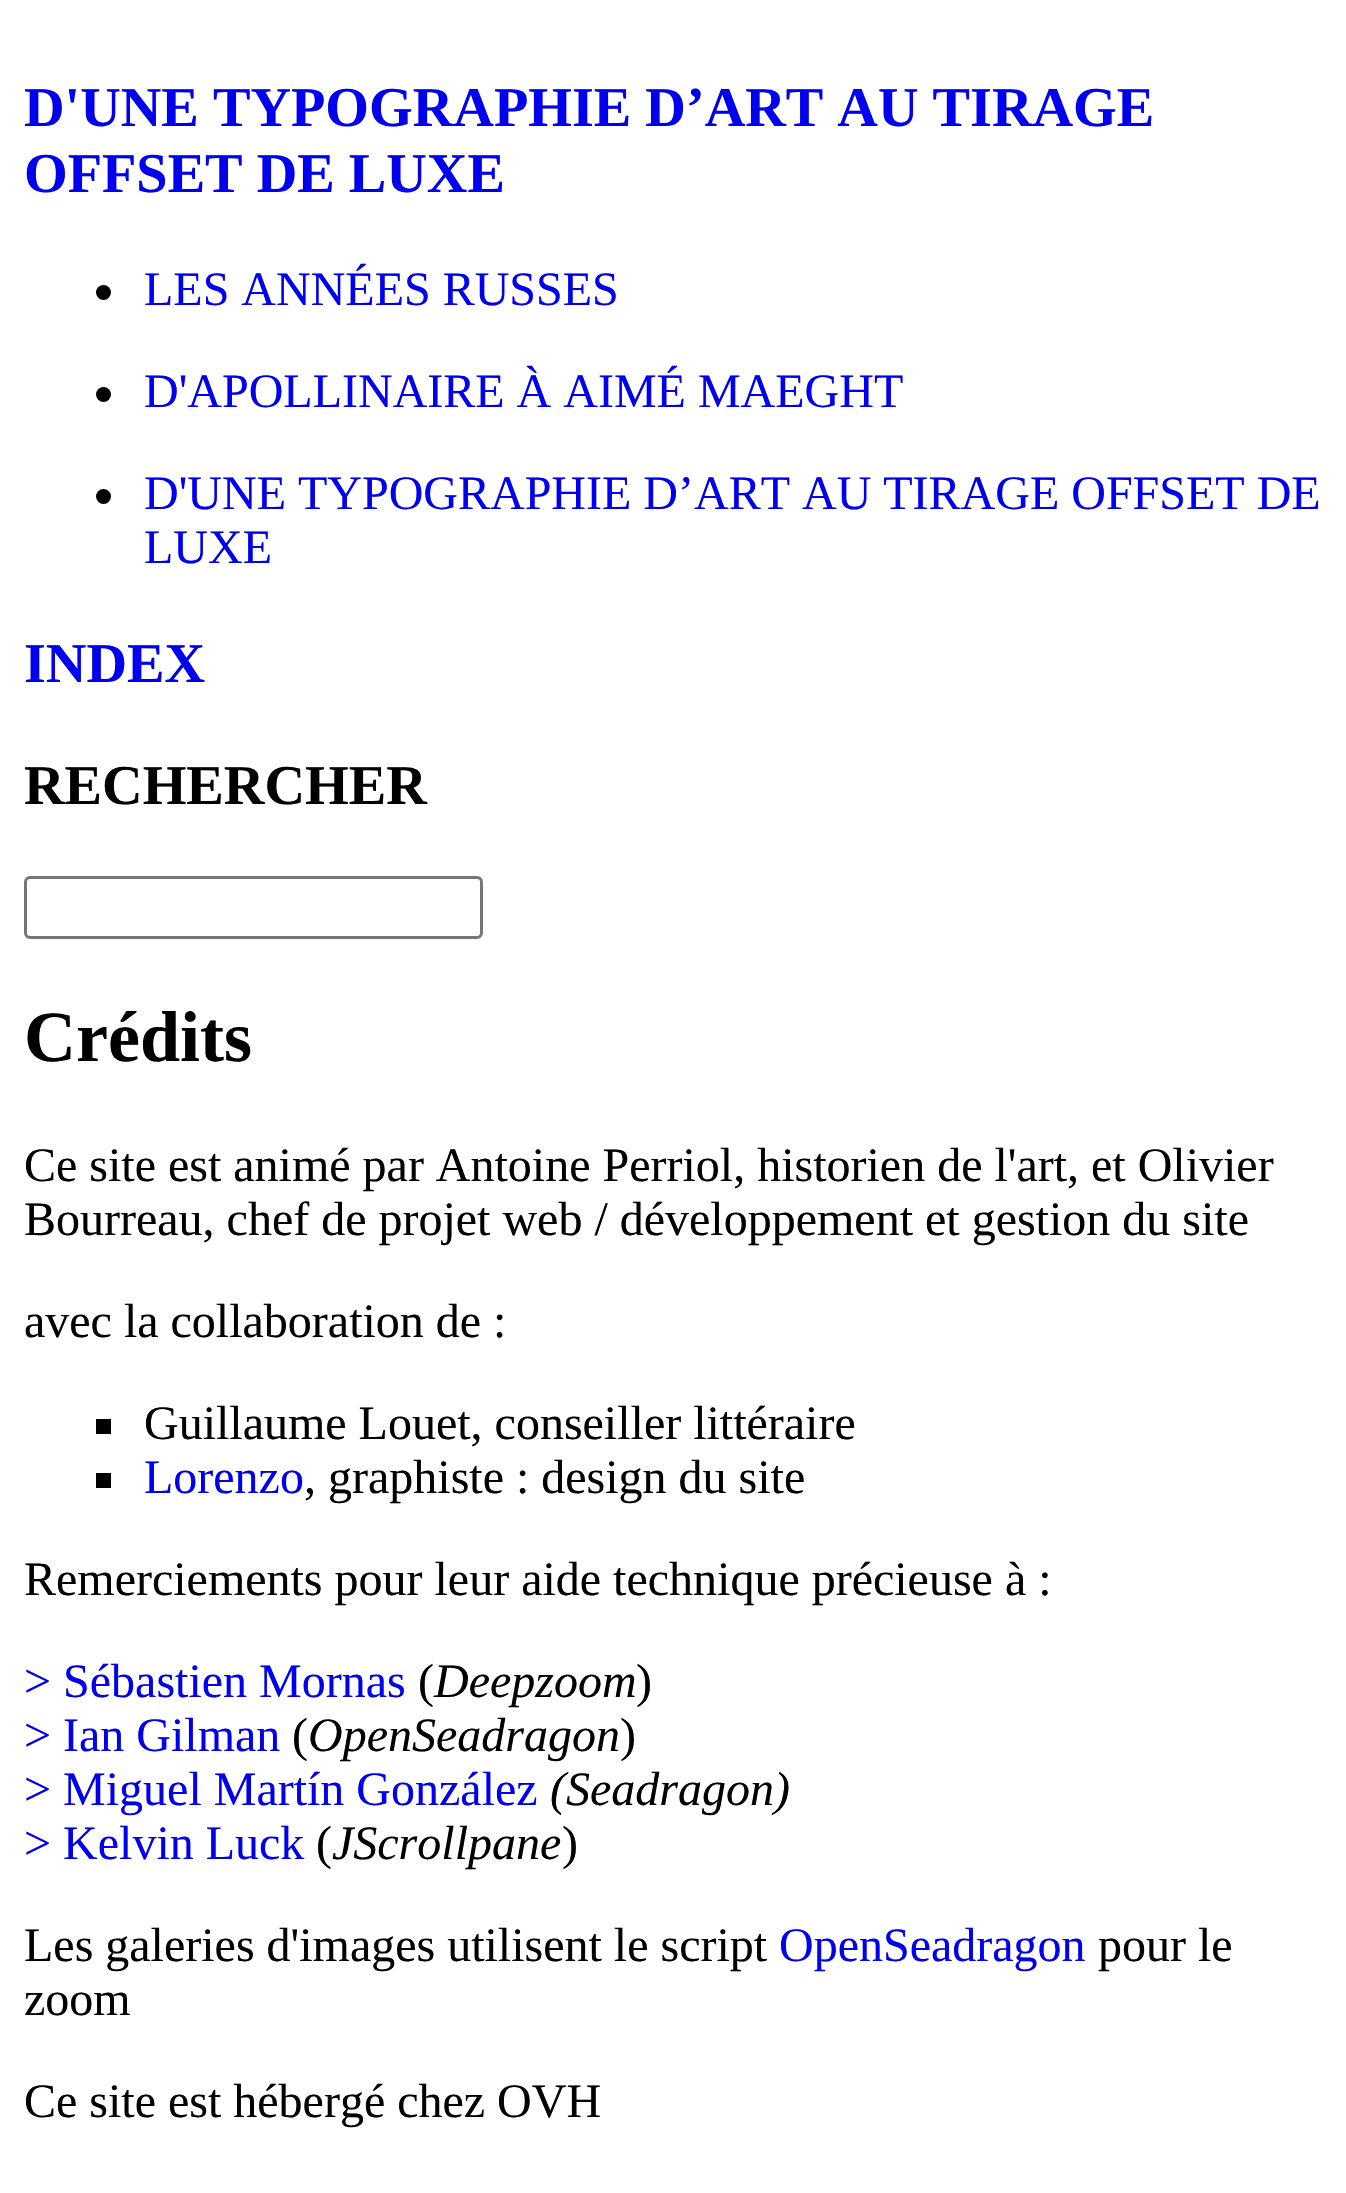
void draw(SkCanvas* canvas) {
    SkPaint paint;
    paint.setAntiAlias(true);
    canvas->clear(0xFFFFFFFF);
    SkFont font1(fontMgr->matchFamilyStyle("Liberation Serif", SkFontStyle::Bold()), 56.2f);
    font1.setSubpixel(true);
    paint.setColor(0xFF0000EE);
    canvas->drawString("D'UNE TYPOGRAPHIE D’ART AU TIRAGE", 24, 126, font1, paint);
    canvas->drawString("OFFSET DE LUXE", 24, 192, font1, paint);
    paint.setColor(0xFF000000);
    canvas->drawCircle(103.5f, 292.5f, 7.5f, paint);
    SkFont font2(fontMgr->matchFamilyStyle("Liberation Serif", SkFontStyle::Normal()), 48);
    font2.setSubpixel(true);
    paint.setColor(0xFF0000EE);
    canvas->drawString("LES ANNÉES RUSSES", 144, 305, font2, paint);
    paint.setColor(0xFF000000);
    canvas->drawCircle(103.5f, 394.5f, 7.5f, paint);
    paint.setColor(0xFF0000EE);
    canvas->drawString("D'APOLLINAIRE À AIMÉ MAEGHT", 144, 407, font2, paint);
    paint.setColor(0xFF000000);
    canvas->drawCircle(103.5f, 496.5f, 7.5f, paint);
    paint.setColor(0xFF0000EE);
    canvas->drawString("D'UNE TYPOGRAPHIE D’ART AU TIRAGE OFFSET DE", 144, 509, font2, paint);
    canvas->drawString("LUXE", 144, 563, font2, paint);
    canvas->drawString("INDEX", 24, 682, font1, paint);
    paint.setColor(0xFF000000);
    canvas->drawString("RECHERCHER", 24, 804, font1, paint);
    paint.setStyle(SkPaint::kStroke_Style);
    paint.setStrokeWidth(3);
    paint.setColor(0xFF767676);
    canvas->drawRoundRect(SkRect::MakeXYWH(25.5f, 877.5f, 456, 60), 4.5f, 4.5f, paint);
    SkFont font3(fontMgr->matchFamilyStyle("Liberation Serif", SkFontStyle::Bold()), 72);
    font3.setSubpixel(true);
    paint.setStyle(SkPaint::kFill_Style);
    paint.setColor(0xFF000000);
    canvas->drawString("Crédits", 24, 1061, font3, paint);
    canvas->drawString("Ce site est animé par Antoine Perriol, historien de l'art, et Olivier", 24, 1181, font2, paint);
    canvas->drawString("Bourreau, chef de projet web / développement et gestion du site", 24, 1235, font2, paint);
    canvas->drawString("avec la collaboration de :", 24, 1337, font2, paint);
    canvas->drawRect(SkRect::MakeXYWH(96, 1419, 15, 15), paint);
    canvas->drawString("Guillaume Louet, conseiller littéraire", 144, 1439, font2, paint);
    canvas->drawRect(SkRect::MakeXYWH(96, 1473, 15, 15), paint);
    paint.setColor(0xFF0000EE);
    canvas->drawString("Lorenzo", 144, 1493, font2, paint);
    paint.setColor(0xFF000000);
    canvas->drawString(", graphiste : design du site", 304, 1493, font2, paint);
    canvas->drawString("Remerciements pour leur aide technique précieuse à :", 24, 1595, font2, paint);
    paint.setColor(0xFF0000EE);
    canvas->drawString("> Sébastien Mornas", 24, 1697, font2, paint);
    paint.setColor(0xFF000000);
    canvas->drawString("(", 418, 1697, font2, paint);
    SkFont font4(fontMgr->matchFamilyStyle("Liberation Serif", SkFontStyle::Italic()), 48);
    font4.setSubpixel(true);
    canvas->drawString("Deepzoom", 434, 1697, font4, paint);
    canvas->drawString(")", 636, 1697, font2, paint);
    paint.setColor(0xFF0000EE);
    canvas->drawString("> Ian Gilman", 24, 1751, font2, paint);
    paint.setColor(0xFF000000);
    canvas->drawString("(", 292, 1751, font2, paint);
    canvas->drawString("OpenSeadragon", 308, 1751, font4, paint);
    canvas->drawString(")", 620, 1751, font2, paint);
    paint.setColor(0xFF0000EE);
    canvas->drawString("> Miguel Martín González", 24, 1805, font2, paint);
    paint.setColor(0xFF000000);
    canvas->drawString("(Seadragon)", 550, 1805, font4, paint);
    paint.setColor(0xFF0000EE);
    canvas->drawString("> Kelvin Luck", 24, 1859, font2, paint);
    paint.setColor(0xFF000000);
    canvas->drawString("(", 316, 1859, font2, paint);
    canvas->drawString("JScrollpane", 332, 1859, font4, paint);
    canvas->drawString(")", 562, 1859, font2, paint);
    canvas->drawString("Les galeries d'images utilisent le script", 24, 1961, font2, paint);
    paint.setColor(0xFF0000EE);
    canvas->drawString("OpenSeadragon", 779, 1961, font2, paint);
    paint.setColor(0xFF000000);
    canvas->drawString("pour le", 1098, 1961, font2, paint);
    canvas->drawString("zoom", 24, 2015, font2, paint);
    canvas->drawString("Ce site est hébergé chez OVH", 24, 2117, font2, paint);
}
